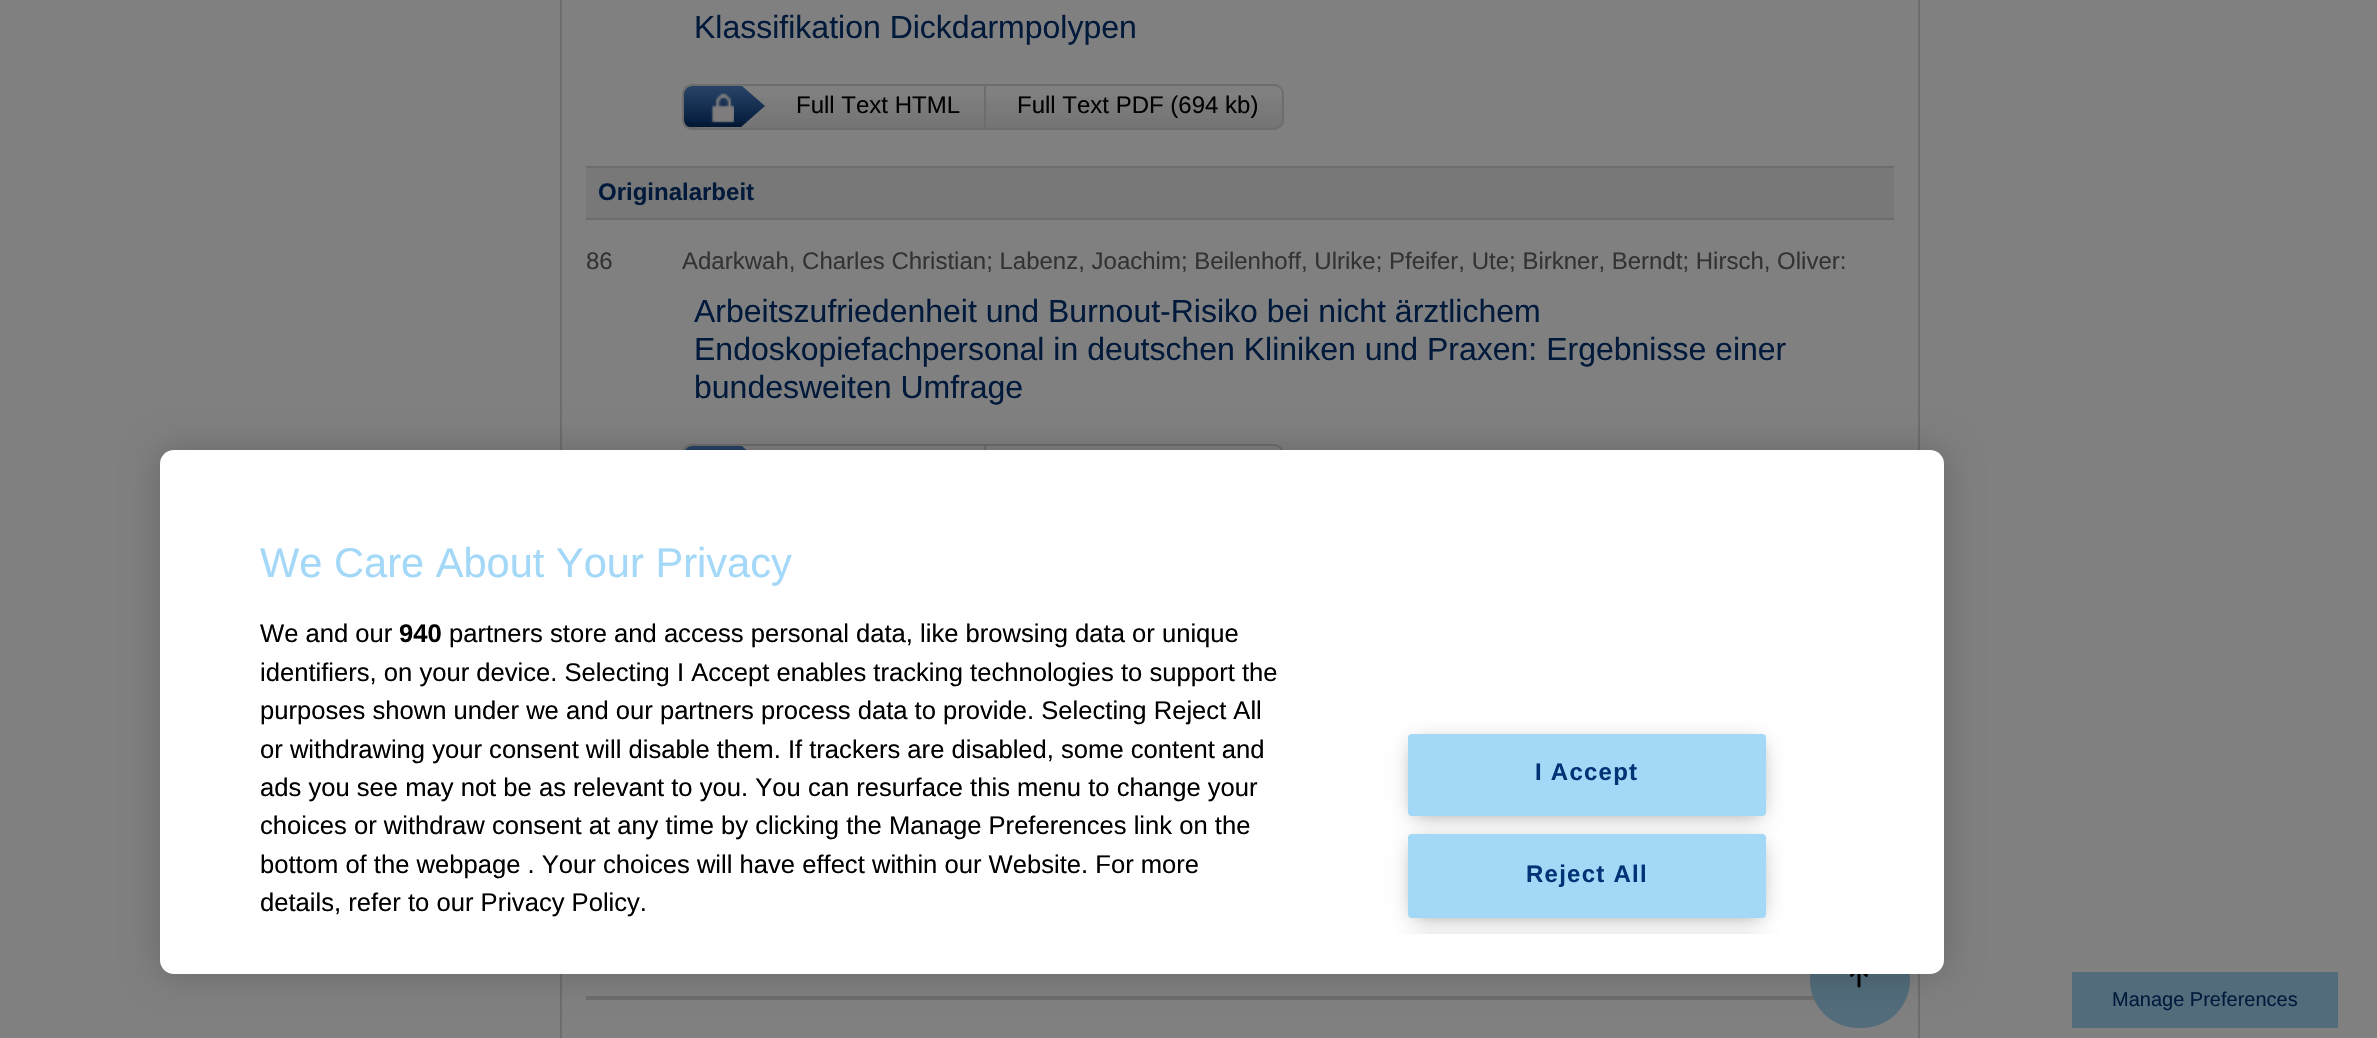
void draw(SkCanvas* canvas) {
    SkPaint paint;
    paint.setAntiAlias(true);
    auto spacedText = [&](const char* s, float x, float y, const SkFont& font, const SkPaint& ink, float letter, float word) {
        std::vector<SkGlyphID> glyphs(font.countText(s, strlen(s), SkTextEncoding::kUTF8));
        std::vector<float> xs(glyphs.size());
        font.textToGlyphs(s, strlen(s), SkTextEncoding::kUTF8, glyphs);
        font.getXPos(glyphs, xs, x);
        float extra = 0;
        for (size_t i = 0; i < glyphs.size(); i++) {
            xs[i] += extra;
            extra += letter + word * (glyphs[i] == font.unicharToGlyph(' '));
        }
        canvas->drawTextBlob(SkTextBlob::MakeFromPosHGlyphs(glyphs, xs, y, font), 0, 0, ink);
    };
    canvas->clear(0xFF808080);
    paint.setStyle(SkPaint::kStroke_Style);
    paint.setStrokeWidth(2);
    paint.setColor(0xFF6D6D6D);
    canvas->drawRect(SkRect::MakeXYWH(561, -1, 1358, 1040), paint);
    paint.setStyle(SkPaint::kFill_Style);
    canvas->drawRect(SkRect::MakeXYWH(586, 166, 1308, 2), paint);
    SkFont font1(fontMgr->matchFamilyStyle("Liberation Sans", SkFontStyle::Normal()), 32);
    font1.setSubpixel(true);
    paint.setColor(0xFF011A3B);
    canvas->drawString("Klassifikation Dickdarmpolypen", 694, 38, font1, paint);
    canvas->drawImageRect(SkImages::DeferredFromEncodedData(SkData::MakeFromFileName("img1.png")), SkRect::MakeXYWH(682, 97, 602, 33), SkSamplingOptions());
    paint.setStyle(SkPaint::kStroke_Style);
    paint.setColor(0xFF6D6D6D);
    canvas->drawRoundRect(SkRect::MakeXYWH(683, 85, 600, 44), 9, 9, paint);
    paint.setStyle(SkPaint::kFill_Style);
    {
        const SkColor colors[] = {0xFF011A3B, 0xFF284366};
        const float stops[] = {0, 1};
        const SkPoint ends[] = {{725, 128}, {725, 86}};
        paint.setShader(SkGradientShader::MakeLinear(ends, colors, stops, 2, SkTileMode::kClamp));
        paint.setAlpha(255);
    }
    canvas->drawPath(SkPathBuilder().moveTo(692, 86).cubicTo(688, 86, 684, 90, 684, 94).lineTo(684, 120).cubicTo(684, 123, 686, 126, 689, 127).lineTo(741, 127).lineTo(765, 106).lineTo(742, 86).close().detach(), paint);
    paint.setShader(nullptr);
    paint.setColor(0x26000000);
    canvas->drawPath(SkPathBuilder().moveTo(684, 114).cubicTo(684, 131, 688, 127, 706, 127).lineTo(741, 127).lineTo(747, 122).lineTo(692, 122).cubicTo(688, 122, 684, 118, 684, 114).close().detach(), paint);
    canvas->drawImageRect(SkImages::DeferredFromEncodedData(SkData::MakeFromFileName("img2.png")), SkRect::MakeXYWH(711, 93, 23, 30), SkSamplingOptions());
    paint.setColor(0xFF6D6D6D);
    canvas->drawRect(SkRect::MakeXYWH(984, 86, 2, 42), paint);
    SkFont font2(fontMgr->matchFamilyStyle("Liberation Sans", SkFontStyle::Normal()), 24);
    font2.setSubpixel(true);
    paint.setColor(0xFF000000);
    canvas->drawString("Full Text HTML", 796, 113, font2, paint);
    canvas->drawString("Full Text PDF (694 kb)", 1017, 113, font2, paint);
    paint.setColor(0xFF787878);
    canvas->drawRect(SkRect::MakeXYWH(586, 168, 1308, 50), paint);
    SkFont font3(fontMgr->matchFamilyStyle("Liberation Sans", SkFontStyle::Bold()), 24);
    font3.setSubpixel(true);
    paint.setColor(0xFF011A3B);
    canvas->drawString("Originalarbeit", 598, 200, font3, paint);
    paint.setColor(0xFF6D6D6D);
    canvas->drawRect(SkRect::MakeXYWH(586, 218, 1308, 2), paint);
    paint.setColor(0xFF333333);
    canvas->drawString("86", 586, 269, font2, paint);
    canvas->drawString("Adarkwah, Charles Christian; Labenz, Joachim; Beilenhoff, Ulrike; Pfeifer, Ute; Birkner, Berndt; Hirsch, Oliver:", 682, 269, font2, paint);
    paint.setColor(0xFF011A3B);
    canvas->drawString("Arbeitszufriedenheit und Burnout-Risiko bei nicht ärztlichem", 694, 322, font1, paint);
    canvas->drawString("Endoskopiefachpersonal in deutschen Kliniken und Praxen: Ergebnisse einer", 694, 360, font1, paint);
    canvas->drawString("bundesweiten Umfrage", 694, 398, font1, paint);
    paint.setStyle(SkPaint::kStroke_Style);
    paint.setColor(0xFF6D6D6D);
    canvas->drawRoundRect(SkRect::MakeXYWH(683, 445, 600, 44), 9, 9, paint);
    paint.setStyle(SkPaint::kFill_Style);
    {
        const SkColor colors[] = {0xFF011A3B, 0xFF284366};
        const float stops[] = {0, 1};
        const SkPoint ends[] = {{725, 488}, {725, 446}};
        paint.setShader(SkGradientShader::MakeLinear(ends, colors, stops, 2, SkTileMode::kClamp));
        paint.setAlpha(255);
    }
    canvas->drawPath(SkPathBuilder().moveTo(692, 446).cubicTo(688, 446, 684, 450, 684, 454).lineTo(684, 480).cubicTo(684, 484, 687, 487, 690, 488).lineTo(741, 488).lineTo(765, 467).lineTo(742, 446).close().detach(), paint);
    paint.setShader(nullptr);
    paint.setColor(0xFF6D6D6D);
    canvas->drawRect(SkRect::MakeXYWH(984, 446, 2, 4), paint);
    canvas->drawRect(SkRect::MakeXYWH(586, 996, 1228, 2), paint);
    canvas->drawRect(SkRect::MakeXYWH(586, 998, 1229, 2), paint);
    paint.setColor(0xFF526C7B);
    canvas->drawRoundRect(SkRect::MakeXYWH(1810, 928, 100, 100), 48, 48, paint);
    canvas->drawImageRect(SkImages::DeferredFromEncodedData(SkData::MakeFromFileName("img3.png")), SkRect::MakeXYWH(1850, 974, 18, 14), SkSamplingOptions());
    paint.setColor(0x33000000);
    paint.setMaskFilter(SkMaskFilter::MakeBlur(kNormal_SkBlurStyle, 18));
    canvas->drawRoundRect(SkRect::MakeXYWH(160, 450, 1784, 524), 14, 14, paint);
    paint.setMaskFilter(nullptr);
    paint.setColor(0xFFFFFFFF);
    canvas->drawRoundRect(SkRect::MakeXYWH(160, 450, 1784, 524), 14, 14, paint);
    SkFont font4(fontMgr->matchFamilyStyle("Liberation Sans", SkFontStyle::Normal()), 41.6f);
    font4.setSubpixel(true);
    paint.setColor(0xFFA3D8F8);
    canvas->drawString("We Care About Your Privacy", 260, 577, font4, paint);
    SkFont font5(fontMgr->matchFamilyStyle("Liberation Sans", SkFontStyle::Normal()), 25.6f);
    font5.setSubpixel(true);
    paint.setColor(0xFF000000);
    canvas->drawString("We and our", 260, 642, font5, paint);
    SkFont font6(fontMgr->matchFamilyStyle("Liberation Sans", SkFontStyle::Bold()), 25.6f);
    font6.setSubpixel(true);
    canvas->drawString("940", 399, 642, font6, paint);
    canvas->drawString("partners store and access personal data, like browsing data or unique", 449, 642, font5, paint);
    canvas->drawString("identifiers, on your device. Selecting I Accept enables tracking technologies to support the", 260, 681, font5, paint);
    canvas->drawString("purposes shown under we and our partners process data to provide. Selecting Reject All", 260, 719, font5, paint);
    canvas->drawString("or withdrawing your consent will disable them. If trackers are disabled, some content and", 260, 758, font5, paint);
    canvas->drawString("ads you see may not be as relevant to you. You can resurface this menu to change your", 260, 796, font5, paint);
    canvas->drawString("choices or withdraw consent at any time by clicking the Manage Preferences link on the", 260, 834, font5, paint);
    canvas->drawString("bottom of the webpage . Your choices will have effect within our Website. For more", 260, 873, font5, paint);
    canvas->drawString("details, refer to our Privacy Policy.", 260, 911, font5, paint);
    paint.setColor(0xFF999999);
    paint.setMaskFilter(SkMaskFilter::MakeBlur(kNormal_SkBlurStyle, 10));
    canvas->drawRect(SkRect::MakeXYWH(1414, 744, 346, 70), paint);
    paint.setMaskFilter(nullptr);
    paint.setColor(0xFFA3D8F6);
    canvas->drawRoundRect(SkRect::MakeXYWH(1409, 735, 356, 80), 3, 3, paint);
    paint.setStyle(SkPaint::kStroke_Style);
    canvas->drawRoundRect(SkRect::MakeXYWH(1409, 735, 356, 80), 3, 3, paint);
    paint.setStyle(SkPaint::kFill_Style);
    paint.setColor(0xFF013476);
    spacedText("I Accept", 1535, 780, font3, paint, 1.25f, 0);
    canvas->save();
    canvas->clipRect(SkRect::MakeXYWH(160, 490, 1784, 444));
    paint.setColor(0xFF999999);
    paint.setMaskFilter(SkMaskFilter::MakeBlur(kNormal_SkBlurStyle, 10));
    canvas->drawRect(SkRect::MakeXYWH(1414, 844, 346, 72), paint);
    paint.setMaskFilter(nullptr);
    canvas->restore();
    paint.setColor(0xFFA3D8F6);
    canvas->drawRoundRect(SkRect::MakeXYWH(1409, 835, 356, 82), 3, 3, paint);
    paint.setStyle(SkPaint::kStroke_Style);
    canvas->drawRoundRect(SkRect::MakeXYWH(1409, 835, 356, 82), 3, 3, paint);
    paint.setStyle(SkPaint::kFill_Style);
    paint.setColor(0xFF013476);
    spacedText("Reject All", 1526, 882, font3, paint, 1.25f, 0);
    canvas->save();
    canvas->clipRect(SkRect::MakeXYWH(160, 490, 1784, 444));
    paint.setColor(0xFF999999);
    paint.setMaskFilter(SkMaskFilter::MakeBlur(kNormal_SkBlurStyle, 10));
    canvas->drawRect(SkRect::MakeXYWH(1414, 946, 346, 70), paint);
    paint.setMaskFilter(nullptr);
    canvas->restore();
    paint.setColor(0xFF526C7B);
    canvas->drawRect(SkRect::MakeXYWH(2072, 972, 266, 56), paint);
    SkFont font7(fontMgr->matchFamilyStyle("Liberation Sans", SkFontStyle::Normal()), 20);
    font7.setSubpixel(true);
    paint.setColor(0xFF011A3B);
    canvas->drawString("Manage Preferences", 2112, 1006, font7, paint);
}
